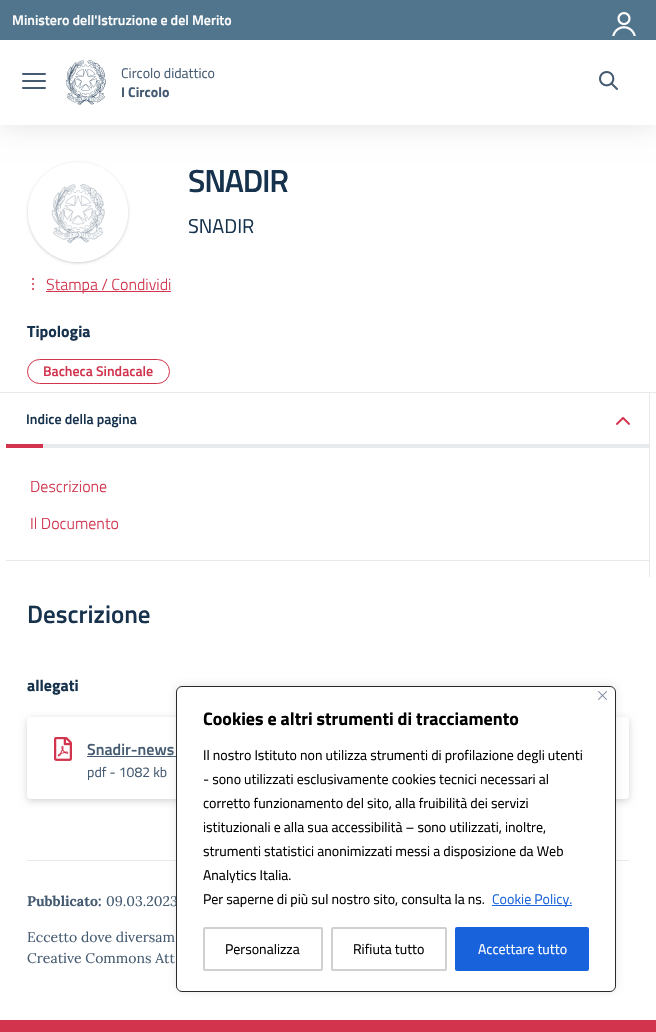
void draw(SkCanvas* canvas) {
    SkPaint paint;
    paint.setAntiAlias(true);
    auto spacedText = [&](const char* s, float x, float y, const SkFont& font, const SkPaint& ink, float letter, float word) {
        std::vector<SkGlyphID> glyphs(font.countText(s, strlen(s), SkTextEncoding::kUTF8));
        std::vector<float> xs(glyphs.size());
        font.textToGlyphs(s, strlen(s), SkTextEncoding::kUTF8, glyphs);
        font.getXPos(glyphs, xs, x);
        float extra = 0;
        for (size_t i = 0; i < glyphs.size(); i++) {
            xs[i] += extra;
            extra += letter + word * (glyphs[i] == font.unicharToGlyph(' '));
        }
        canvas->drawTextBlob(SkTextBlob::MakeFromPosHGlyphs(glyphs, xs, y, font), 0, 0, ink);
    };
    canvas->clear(0xFFFFFFFF);
    paint.setColor(0x1A000000);
    paint.setMaskFilter(SkMaskFilter::MakeBlur(kNormal_SkBlurStyle, 12.5f));
    canvas->drawRect(SkRect::MakeXYWH(0, 2, 656, 125), paint);
    paint.setMaskFilter(nullptr);
    paint.setColor(0xFFFFFFFF);
    canvas->drawRect(SkRect::MakeXYWH(0, 40, 656, 85), paint);
    paint.setColor(0xFF51758D);
    canvas->drawRect(SkRect::MakeXYWH(0, 0, 656, 40), paint);
    SkFont font1(fontMgr->matchFamilyStyle("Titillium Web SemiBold", SkFontStyle(600, SkFontStyle::kNormal_Width, SkFontStyle::kUpright_Slant)), 14);
    font1.setSubpixel(true);
    paint.setColor(0xFFFFFFFF);
    canvas->drawString("Ministero dell'Istruzione e del Merito", 12, 25, font1, paint);
    canvas->drawImageRect(SkImages::DeferredFromEncodedData(SkData::MakeFromFileName("img1.png")), SkRect::MakeXYWH(612, 12, 24, 24), SkSamplingOptions());
    paint.setColor(0xFF455B71);
    canvas->drawRoundRect(SkRect::MakeXYWH(22, 80, 24, 2), 1, 1, paint);
    canvas->drawRoundRect(SkRect::MakeXYWH(22, 73, 24, 2), 1, 1, paint);
    canvas->drawRoundRect(SkRect::MakeXYWH(22, 87, 24, 2), 1, 1, paint);
    canvas->drawImageRect(SkImages::DeferredFromEncodedData(SkData::MakeFromFileName("img2.png")), SkRect::MakeXYWH(66, 60, 40, 45), SkSamplingOptions());
    SkFont font2(fontMgr->matchFamilyStyle("Titillium Web", SkFontStyle::Normal()), 14);
    font2.setSubpixel(true);
    canvas->drawString("Circolo didattico", 121, 78, font2, paint);
    SkFont font3(fontMgr->matchFamilyStyle("Titillium Web", SkFontStyle::Bold()), 14);
    font3.setSubpixel(true);
    canvas->drawString("I Circolo", 121, 97, font3, paint);
    canvas->drawImageRect(SkImages::DeferredFromEncodedData(SkData::MakeFromFileName("img3.png")), SkRect::MakeXYWH(599, 71, 19, 19), SkSamplingOptions());
    canvas->save();
    canvas->clipPath(SkPathBuilder(SkPathFillType::kEvenOdd).moveTo(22, 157).lineTo(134, 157).lineTo(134, 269).lineTo(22, 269).close().moveTo(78, 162).cubicTo(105.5f, 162, 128, 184.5f, 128, 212).cubicTo(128, 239.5f, 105.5f, 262, 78, 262).cubicTo(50.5f, 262, 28, 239.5f, 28, 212).cubicTo(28, 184.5f, 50.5f, 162, 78, 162).close().detach(), true);
    paint.setColor(0x33000000);
    paint.setMaskFilter(SkMaskFilter::MakeBlur(kNormal_SkBlurStyle, 1.5f));
    canvas->drawRoundRect(SkRect::MakeXYWH(28, 163, 100, 100), 50, 50, paint);
    paint.setMaskFilter(nullptr);
    canvas->restore();
    canvas->drawImageRect(SkImages::DeferredFromEncodedData(SkData::MakeFromFileName("img4.png")), SkRect::MakeXYWH(28, 167, 100, 95), SkSamplingOptions());
    SkFont font4(fontMgr->matchFamilyStyle("Titillium Web SemiBold", SkFontStyle(600, SkFontStyle::kNormal_Width, SkFontStyle::kUpright_Slant)), 32);
    font4.setSubpixel(true);
    paint.setColor(0xFF17324D);
    spacedText("SNADIR", 188, 192, font4, paint, -1.25f, 0);
    SkFont font5(fontMgr->matchFamilyStyle("Titillium Web", SkFontStyle::Normal()), 20);
    font5.setSubpixel(true);
    canvas->drawString("SNADIR", 188, 233, font5, paint);
    canvas->drawImageRect(SkImages::DeferredFromEncodedData(SkData::MakeFromFileName("img5.png")), SkRect::MakeXYWH(32, 278, 2, 12), SkSamplingOptions());
    paint.setColor(0xFFD1344C);
    canvas->drawRect(SkRect::MakeXYWH(46, 291, 125, 1), paint);
    SkFont font6(fontMgr->matchFamilyStyle("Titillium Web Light", SkFontStyle(300, SkFontStyle::kNormal_Width, SkFontStyle::kUpright_Slant)), 16);
    font6.setSubpixel(true);
    canvas->drawString("Stampa / Condividi", 46, 290, font6, paint);
    SkFont font7(fontMgr->matchFamilyStyle("Titillium Web", SkFontStyle::Bold()), 16);
    font7.setSubpixel(true);
    paint.setColor(0xFF17324D);
    canvas->drawString("Tipologia", 27, 337, font7, paint);
    paint.setStyle(SkPaint::kStroke_Style);
    paint.setStrokeWidth(1);
    paint.setColor(0xFFD1344C);
    canvas->drawRoundRect(SkRect::MakeXYWH(27.5f, 359.5f, 142, 24), 12, 12, paint);
    paint.setStyle(SkPaint::kFill_Style);
    canvas->drawString("Bacheca Sindacale", 43, 376, font1, paint);
    paint.setColor(0xFFE7EAED);
    canvas->drawRect(SkRect::MakeXYWH(0, 392, 656, 1), paint);
    paint.setColor(0xFF17324D);
    canvas->drawString("Indice della pagina", 26, 424, font1, paint);
    canvas->drawImageRect(SkImages::DeferredFromEncodedData(SkData::MakeFromFileName("img6.png")), SkRect::MakeXYWH(616, 417, 14, 8), SkSamplingOptions());
    paint.setColor(0xFFD1344C);
    canvas->drawRect(SkRect::MakeXYWH(6, 444, 37, 4), paint);
    paint.setColor(0xFFE7EAED);
    canvas->drawRect(SkRect::MakeXYWH(43, 444, 607, 4), paint);
    canvas->drawRect(SkRect::MakeXYWH(6, 560, 644, 1), paint);
    paint.setColor(0xFFD1344C);
    canvas->drawString("Descrizione", 30, 492, font6, paint);
    canvas->drawString("Il Documento", 30, 529, font6, paint);
    paint.setColor(0xFFE7EAED);
    canvas->drawRect(SkRect::MakeXYWH(649, 393, 1, 184), paint);
    SkFont font8(fontMgr->matchFamilyStyle("Titillium Web SemiBold", SkFontStyle(600, SkFontStyle::kNormal_Width, SkFontStyle::kUpright_Slant)), 25);
    font8.setSubpixel(true);
    paint.setColor(0xFF17324D);
    canvas->drawString("Descrizione", 27, 623, font8, paint);
    canvas->drawString("allegati", 27, 691, font7, paint);
    paint.setColor(0x2B000000);
    paint.setMaskFilter(SkMaskFilter::MakeBlur(kNormal_SkBlurStyle, 3.5f));
    canvas->drawRoundRect(SkRect::MakeXYWH(27, 719, 602, 82), 4, 4, paint);
    paint.setMaskFilter(nullptr);
    paint.setColor(0xFFFFFFFF);
    canvas->drawRoundRect(SkRect::MakeXYWH(27, 717, 602, 82), 4, 4, paint);
    canvas->drawImageRect(SkImages::DeferredFromEncodedData(SkData::MakeFromFileName("img7.png")), SkRect::MakeXYWH(54, 737, 18, 24), SkSamplingOptions());
    SkFont font9(fontMgr->matchFamilyStyle("Titillium Web SemiBold", SkFontStyle(600, SkFontStyle::kNormal_Width, SkFontStyle::kUpright_Slant)), 16);
    font9.setSubpixel(true);
    paint.setColor(0xFF455B71);
    canvas->drawString("Snadir-news", 87, 755, font9, paint);
    canvas->drawRect(SkRect::MakeXYWH(87, 756, 89, 1), paint);
    canvas->drawString("pdf - 1082 kb", 87, 777, font2, paint);
    paint.setColor(0xFFE7EAED);
    canvas->drawRect(SkRect::MakeXYWH(27, 860, 602, 1), paint);
    SkFont font10(fontMgr->matchFamilyStyle("Lora", SkFontStyle::Bold()), 14);
    font10.setSubpixel(true);
    paint.setColor(0xFF455B71);
    canvas->drawString("Pubblicato:", 27, 906, font10, paint);
    SkFont font11(fontMgr->matchFamilyStyle("Lora", SkFontStyle::Normal()), 14);
    font11.setSubpixel(true);
    canvas->drawString("09.03.2023", 106, 906, font11, paint);
    canvas->drawString("Eccetto dove diversam", 27, 942, font11, paint);
    canvas->drawString("Creative Commons Att", 27, 963, font11, paint);
    paint.setColor(0xFFD1344C);
    canvas->drawRect(SkRect::MakeXYWH(0, 1020, 656, 12), paint);
    paint.setColor(0x4DACABAB);
    paint.setMaskFilter(SkMaskFilter::MakeBlur(kNormal_SkBlurStyle, 5));
    canvas->drawRoundRect(SkRect::MakeXYWH(176, 685, 440, 306), 6, 6, paint);
    paint.setMaskFilter(nullptr);
    paint.setColor(0xFFFFFFFF);
    canvas->drawRoundRect(SkRect::MakeXYWH(176.5f, 686.5f, 439, 305), 5.5f, 5.5f, paint);
    paint.setStyle(SkPaint::kStroke_Style);
    paint.setColor(0xFF2A2A2A);
    canvas->drawRoundRect(SkRect::MakeXYWH(176.5f, 686.5f, 439, 305), 5.5f, 5.5f, paint);
    canvas->drawImageRect(SkImages::DeferredFromEncodedData(SkData::MakeFromFileName("img8.png")), SkRect::MakeXYWH(598, 691, 9, 9), SkSamplingOptions());
    SkFont font12(fontMgr->matchFamilyStyle("Titillium Web", SkFontStyle::Bold()), 18);
    font12.setSubpixel(true);
    paint.setStyle(SkPaint::kFill_Style);
    paint.setColor(0xFF000000);
    canvas->drawString("Cookies e altri strumenti di tracciamento", 203, 725, font12, paint);
    canvas->drawString("Il nostro Istituto non utilizza strumenti di profilazione degli utenti", 203, 760, font2, paint);
    canvas->drawString("- sono utilizzati esclusivamente cookies tecnici necessari al", 203, 784, font2, paint);
    canvas->drawString("corretto funzionamento del sito, alla fruibilità dei servizi", 203, 808, font2, paint);
    canvas->drawString("istituzionali e alla sua accessibilità – sono utilizzati, inoltre,", 203, 832, font2, paint);
    canvas->drawString("strumenti statistici anonimizzati messi a disposizione da Web", 203, 856, font2, paint);
    canvas->drawString("Analytics Italia.", 203, 880, font2, paint);
    canvas->drawString("Per saperne di più sul nostro sito, consulta la ns.", 203, 904, font2, paint);
    paint.setColor(0xFF1863DC);
    canvas->drawRect(SkRect::MakeXYWH(492, 905, 80, 1), paint);
    canvas->drawString("Cookie Policy.", 492, 904, font2, paint);
    paint.setStyle(SkPaint::kStroke_Style);
    paint.setStrokeWidth(2);
    paint.setColor(0xFFD0D0D0);
    canvas->drawRoundRect(SkRect::MakeXYWH(204, 928, 118, 42), 1, 1, paint);
    paint.setStyle(SkPaint::kFill_Style);
    paint.setColor(0xFF000000);
    canvas->drawString("Personalizza", 225, 954, font2, paint);
    paint.setStyle(SkPaint::kStroke_Style);
    paint.setColor(0xFFD0D0D0);
    canvas->drawRoundRect(SkRect::MakeXYWH(332, 928, 114, 42), 1, 1, paint);
    paint.setStyle(SkPaint::kFill_Style);
    paint.setColor(0xFF000000);
    canvas->drawString("Rifiuta tutto", 353, 954, font2, paint);
    paint.setColor(0xFF1863DC);
    canvas->drawRoundRect(SkRect::MakeXYWH(456, 928, 132, 42), 1, 1, paint);
    paint.setStyle(SkPaint::kStroke_Style);
    canvas->drawRoundRect(SkRect::MakeXYWH(456, 928, 132, 42), 1, 1, paint);
    paint.setStyle(SkPaint::kFill_Style);
    paint.setColor(0xFFFFFFFF);
    canvas->drawString("Accettare tutto", 478, 954, font2, paint);
}
